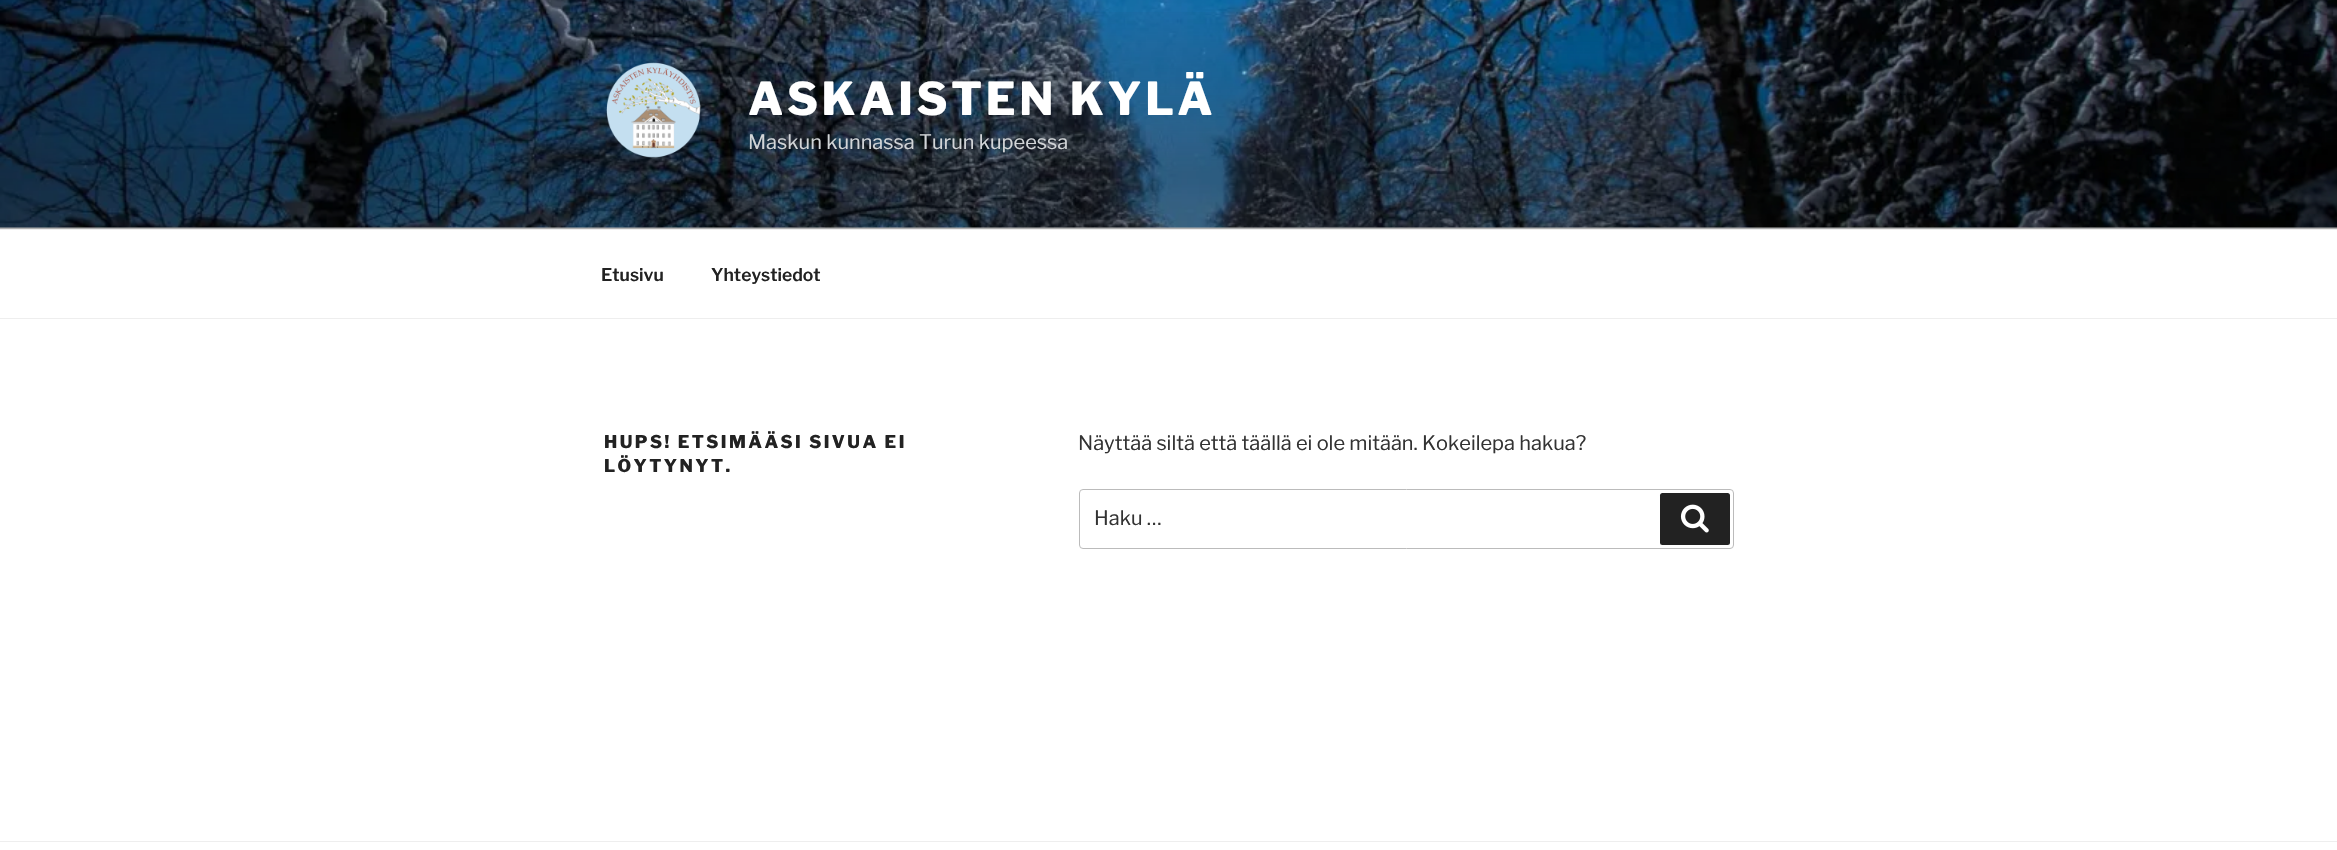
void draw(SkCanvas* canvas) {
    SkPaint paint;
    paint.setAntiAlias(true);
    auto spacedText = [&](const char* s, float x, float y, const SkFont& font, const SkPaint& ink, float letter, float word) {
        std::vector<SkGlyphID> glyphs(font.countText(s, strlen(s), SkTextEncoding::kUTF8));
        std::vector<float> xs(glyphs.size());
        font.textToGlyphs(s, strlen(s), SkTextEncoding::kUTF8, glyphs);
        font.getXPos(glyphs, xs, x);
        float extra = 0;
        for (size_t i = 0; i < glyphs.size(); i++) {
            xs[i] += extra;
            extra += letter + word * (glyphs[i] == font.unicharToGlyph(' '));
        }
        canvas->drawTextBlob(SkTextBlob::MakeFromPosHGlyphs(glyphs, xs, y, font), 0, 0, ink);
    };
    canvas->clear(0xFFFFFFFF);
    paint.setColor(0xFFFAFAFA);
    canvas->drawRect(SkRect::MakeXYWH(0, 227, 2337, 2), paint);
    canvas->drawImageRect(SkImages::DeferredFromEncodedData(SkData::MakeFromFileName("img1.png")), SkRect::MakeXYWH(0, 0, 2337, 228), SkSamplingOptions());
    {
        const SkColor colors[] = {0x00000000, 0x4D000000, 0x4D000000};
        const float stops[] = {0, 0.75f, 1};
        const SkPoint ends[] = {{1169, 0}, {1169, 229}};
        paint.setShader(SkGradientShader::MakeLinear(ends, colors, stops, 3, SkTileMode::kClamp));
        paint.setAlpha(255);
    }
    canvas->drawRect(SkRect::MakeXYWH(0, 12, 2337, 217), paint);
    canvas->drawImageRect(SkImages::DeferredFromEncodedData(SkData::MakeFromFileName("img2.png")), SkRect::MakeXYWH(606, 62, 95, 96), SkSamplingOptions());
    SkFont font1(fontMgr->matchFamilyStyle("Libre Franklin", SkFontStyle(100, SkFontStyle::kNormal_Width, SkFontStyle::kUpright_Slant)), 45);
    font1.setSubpixel(true);
    paint.setShader(nullptr);
    paint.setColor(0xFFFFFFFF);
    spacedText("ASKAISTEN KYLÄ", 748, 115, font1, paint, 3.6f, 0);
    SkFont font2(fontMgr->matchFamilyStyle("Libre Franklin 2", SkFontStyle(100, SkFontStyle::kNormal_Width, SkFontStyle::kUpright_Slant)), 20);
    font2.setSubpixel(true);
    paint.setColor(0xFFD2D5D8);
    canvas->drawString("Maskun kunnassa Turun kupeessa", 748, 149, font2, paint);
    paint.setColor(0xFFEEEEEE);
    canvas->drawRect(SkRect::MakeXYWH(0, 229, 2337, 1), paint);
    canvas->drawRect(SkRect::MakeXYWH(0, 318, 2337, 1), paint);
    SkFont font3(fontMgr->matchFamilyStyle("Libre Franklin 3", SkFontStyle(100, SkFontStyle::kNormal_Width, SkFontStyle::kUpright_Slant)), 17.5f);
    font3.setSubpixel(true);
    paint.setColor(0xFF222222);
    canvas->drawString("Etusivu", 601, 281, font3, paint);
    canvas->drawString("Yhteystiedot", 711, 281, font3, paint);
    SkFont font4(fontMgr->matchFamilyStyle("Libre Franklin", SkFontStyle(100, SkFontStyle::kNormal_Width, SkFontStyle::kUpright_Slant)), 17.5f);
    font4.setSubpixel(true);
    spacedText("HUPS! ETSIMÄÄSI SIVUA EI", 604, 448, font4, paint, 2.45f, 0);
    spacedText("LÖYTYNYT.", 604, 472, font4, paint, 2.45f, 0);
    paint.setColor(0xFF333333);
    canvas->drawString("Näyttää siltä että täällä ei ole mitään. Kokeilepa hakua?", 1078, 450, font2, paint);
    paint.setStyle(SkPaint::kStroke_Style);
    paint.setStrokeWidth(1);
    paint.setColor(0xFFBBBBBB);
    canvas->drawRoundRect(SkRect::MakeXYWH(1079.5f, 489.5f, 654, 59), 3.5f, 3.5f, paint);
    paint.setStyle(SkPaint::kFill_Style);
    paint.setColor(0xFF333333);
    canvas->drawString("Haku …", 1094, 525, font2, paint);
    paint.setColor(0xFF222222);
    canvas->drawRoundRect(SkRect::MakeXYWH(1660, 493, 70, 52), 2.5f, 2.5f, paint);
    canvas->drawImageRect(SkImages::DeferredFromEncodedData(SkData::MakeFromFileName("img3.png")), SkRect::MakeXYWH(1680, 504, 29, 29), SkSamplingOptions());
    paint.setColor(0xFFEEEEEE);
    canvas->drawRect(SkRect::MakeXYWH(0, 841, 2337, 1), paint);
}
